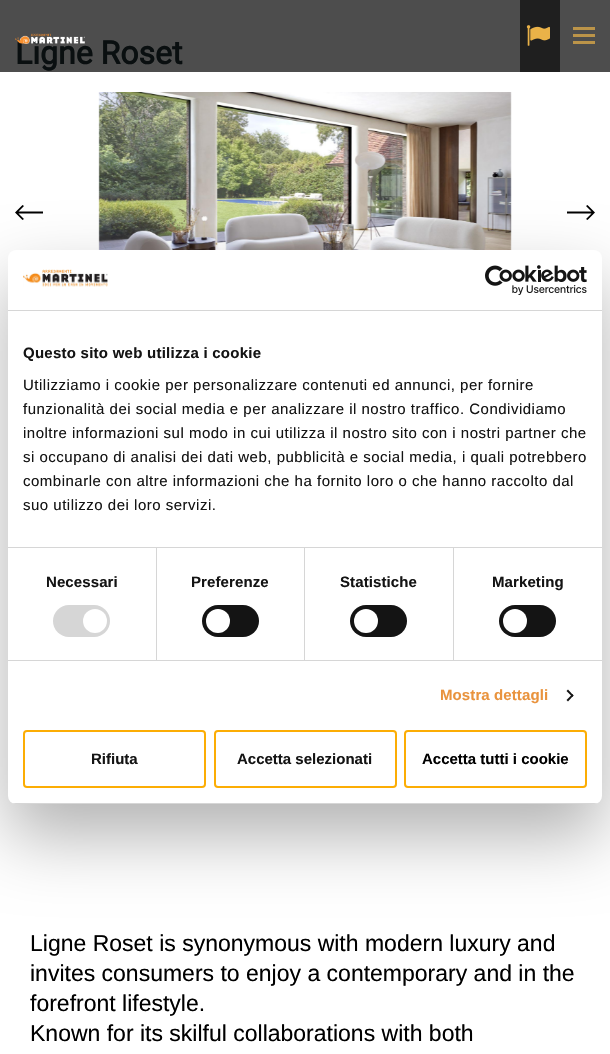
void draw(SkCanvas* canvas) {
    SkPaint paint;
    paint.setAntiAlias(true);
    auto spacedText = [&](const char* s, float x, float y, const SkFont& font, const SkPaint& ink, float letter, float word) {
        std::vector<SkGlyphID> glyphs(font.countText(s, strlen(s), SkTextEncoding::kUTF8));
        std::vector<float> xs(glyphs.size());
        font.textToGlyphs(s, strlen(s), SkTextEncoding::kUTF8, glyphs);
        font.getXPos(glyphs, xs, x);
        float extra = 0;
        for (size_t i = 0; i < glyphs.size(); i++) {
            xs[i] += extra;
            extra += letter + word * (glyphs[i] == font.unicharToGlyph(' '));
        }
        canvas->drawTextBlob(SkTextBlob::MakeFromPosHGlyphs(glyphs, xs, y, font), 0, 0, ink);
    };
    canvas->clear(0xFFFFFFFF);
    paint.setColor(0xFF4D4D4D);
    canvas->drawRect(SkRect::MakeXYWH(0, 0, 610, 72), paint);
    SkFont font1(fontMgr->matchFamilyStyle("Roboto", SkFontStyle::Bold()), 32);
    font1.setSubpixel(true);
    paint.setColor(0xFF0A0F10);
    canvas->drawString("Ligne Roset", 15, 64, font1, paint);
    canvas->drawImageRect(SkImages::DeferredFromEncodedData(SkData::MakeFromFileName("img1.png")), SkRect::MakeXYWH(15, 33, 70, 11), SkSamplingOptions());
    paint.setColor(0xFF1F1F1F);
    canvas->drawRect(SkRect::MakeXYWH(520, 0, 40, 72), paint);
    canvas->drawImageRect(SkImages::DeferredFromEncodedData(SkData::MakeFromFileName("img2.png")), SkRect::MakeXYWH(526, 25, 24, 21), SkSamplingOptions());
    paint.setColor(0xFFBB9449);
    canvas->drawRect(SkRect::MakeXYWH(573, 27, 22, 3), paint);
    canvas->drawRect(SkRect::MakeXYWH(573, 34, 22, 3), paint);
    canvas->drawRect(SkRect::MakeXYWH(573, 41, 22, 3), paint);
    canvas->drawImageRect(SkImages::DeferredFromEncodedData(SkData::MakeFromFileName("img3.png")), SkRect::MakeXYWH(98, 92, 414, 158), SkSamplingOptions());
    paint.setColor(0xFF000000);
    canvas->drawPath(SkPathBuilder().moveTo(43, 211.5f).lineTo(43, 213.5f).lineTo(18.5f, 213.5f).lineTo(24, 219).lineTo(22.5f, 220).lineTo(15, 212.5f).lineTo(22.5f, 205).lineTo(24, 206).lineTo(18.5f, 211.5f).close().detach(), paint);
    canvas->drawPath(SkPathBuilder().moveTo(587.5f, 205).lineTo(595, 212.5f).lineTo(587.5f, 220).lineTo(586, 219).lineTo(591.5f, 213.5f).lineTo(567, 213.5f).lineTo(567, 211.5f).lineTo(591.5f, 211.5f).lineTo(586, 206).close().detach(), paint);
    SkFont font2(fontMgr->matchFamilyStyle("Liberation Sans", SkFontStyle::Normal()), 23);
    font2.setSubpixel(true);
    canvas->drawString("Ligne Roset is synonymous with modern luxury and", 30, 951, font2, paint);
    canvas->drawString("invites consumers to enjoy a contemporary and in the", 30, 981, font2, paint);
    canvas->drawString("forefront lifestyle.", 30, 1011, font2, paint);
    canvas->drawString("Known for its skilful collaborations with both", 30, 1041, font2, paint);
    paint.setColor(0x4D000000);
    paint.setMaskFilter(SkMaskFilter::MakeBlur(kNormal_SkBlurStyle, 34));
    canvas->drawRoundRect(SkRect::MakeXYWH(8, 282, 594, 554), 8, 8, paint);
    paint.setMaskFilter(nullptr);
    paint.setColor(0xFFFFFFFF);
    canvas->drawRoundRect(SkRect::MakeXYWH(8, 250, 594, 554), 8, 8, paint);
    paint.setColor(0xFFD6D6D6);
    canvas->drawRect(SkRect::MakeXYWH(8, 310, 594, 1), paint);
    canvas->drawImageRect(SkImages::DeferredFromEncodedData(SkData::MakeFromFileName("img4.png")), SkRect::MakeXYWH(23, 269, 85, 18), SkSamplingOptions());
    canvas->drawImageRect(SkImages::DeferredFromEncodedData(SkData::MakeFromFileName("img5.png")), SkRect::MakeXYWH(485, 265, 102, 30), SkSamplingOptions());
    canvas->drawRect(SkRect::MakeXYWH(8, 547, 594, 1), paint);
    SkFont font3(fontMgr->matchFamilyStyle("Liberation Sans", SkFontStyle::Bold()), 15);
    font3.setSubpixel(true);
    paint.setColor(0xFF141414);
    spacedText("Questo sito web utilizza i cookie", 23, 358, font3, paint, 0.25f, 0);
    SkFont font4(fontMgr->matchFamilyStyle("Liberation Sans", SkFontStyle::Normal()), 15);
    font4.setSubpixel(true);
    spacedText("Utilizziamo i cookie per personalizzare contenuti ed annunci, per fornire", 23, 390, font4, paint, 0.5f, 0);
    spacedText("funzionalità dei social media e per analizzare il nostro traffico. Condividiamo", 23, 414, font4, paint, 0.5f, 0);
    spacedText("inoltre informazioni sul modo in cui utilizza il nostro sito con i nostri partner che", 23, 438, font4, paint, 0.5f, 0);
    spacedText("si occupano di analisi dei dati web, pubblicità e social media, i quali potrebbero", 23, 462, font4, paint, 0.5f, 0);
    spacedText("combinarle con altre informazioni che ha fornito loro o che hanno raccolto dal", 23, 486, font4, paint, 0.5f, 0);
    spacedText("suo utilizzo dei loro servizi.", 23, 510, font4, paint, 0.5f, 0);
    paint.setColor(0xFFD6D6D6);
    canvas->drawRect(SkRect::MakeXYWH(8, 660, 594, 1), paint);
    canvas->drawRect(SkRect::MakeXYWH(156, 548, 1, 112), paint);
    paint.setColor(0xFF141414);
    spacedText("Necessari", 46, 587, font3, paint, 0.1f, 0);
    paint.setColor(0xFFD6D6D6);
    canvas->drawRoundRect(SkRect::MakeXYWH(53, 605, 57, 32), 16, 16, paint);
    paint.setColor(0xFFFFFFFF);
    canvas->drawCircle(95, 621, 12, paint);
    paint.setColor(0xFFD6D6D6);
    canvas->drawRect(SkRect::MakeXYWH(304, 548, 1, 112), paint);
    paint.setColor(0xFF141414);
    spacedText("Preferenze", 191, 587, font3, paint, 0.1f, 0);
    canvas->drawRoundRect(SkRect::MakeXYWH(202, 605, 57, 32), 16, 16, paint);
    paint.setColor(0xFFFFFFFF);
    canvas->drawCircle(218, 621, 12, paint);
    paint.setColor(0xFFD6D6D6);
    canvas->drawRect(SkRect::MakeXYWH(453, 548, 1, 112), paint);
    paint.setColor(0xFF141414);
    spacedText("Statistiche", 340, 587, font3, paint, 0.1f, 0);
    canvas->drawRoundRect(SkRect::MakeXYWH(350, 605, 57, 32), 16, 16, paint);
    paint.setColor(0xFFFFFFFF);
    canvas->drawCircle(366, 621, 12, paint);
    paint.setColor(0xFF141414);
    spacedText("Marketing", 492, 587, font3, paint, 0.1f, 0);
    canvas->drawRoundRect(SkRect::MakeXYWH(499, 605, 57, 32), 16, 16, paint);
    paint.setColor(0xFFFFFFFF);
    canvas->drawCircle(515, 621, 12, paint);
    paint.setColor(0xFFE9933D);
    spacedText("Mostra dettagli", 440, 700, font3, paint, 0.1f, 0);
    paint.setColor(0xFF141414);
    canvas->drawPath(SkPathBuilder().moveTo(568, 689.5f).lineTo(573.5f, 695.5f).lineTo(572.5f, 697).lineTo(566.5f, 691).close().detach(), paint);
    canvas->drawPath(SkPathBuilder().moveTo(572.5f, 694).lineTo(573.5f, 695.5f).lineTo(568, 701.5f).lineTo(566.5f, 700).close().detach(), paint);
    canvas->save();
    canvas->clipPath(SkPathBuilder().moveTo(16, 250).lineTo(594, 250).cubicTo(598.5f, 250, 602, 253.5f, 602, 258).lineTo(602, 796).cubicTo(602, 800.5f, 598.5f, 804, 594, 804).lineTo(16, 804).cubicTo(11.5f, 804, 8, 800.5f, 8, 796).lineTo(8, 258).cubicTo(8, 253.5f, 11.5f, 250, 16, 250).close().detach(), true);
    paint.setColor(0xFFD6D6D6);
    canvas->drawRect(SkRect::MakeXYWH(8, 803, 594, 1), paint);
    canvas->restore();
    paint.setStyle(SkPaint::kStroke_Style);
    paint.setStrokeWidth(2);
    paint.setColor(0xFFFCAD04);
    canvas->drawRoundRect(SkRect::MakeXYWH(24, 731, 181, 56), 3, 3, paint);
    paint.setStyle(SkPaint::kFill_Style);
    paint.setColor(0xFF141414);
    canvas->drawString("Rifiuta", 91, 764, font3, paint);
    paint.setStyle(SkPaint::kStroke_Style);
    paint.setColor(0xFFFCAD04);
    canvas->drawRoundRect(SkRect::MakeXYWH(215, 731, 181, 56), 3, 3, paint);
    paint.setStyle(SkPaint::kFill_Style);
    paint.setColor(0xFF141414);
    canvas->drawString("Accetta selezionati", 237, 764, font3, paint);
    paint.setStyle(SkPaint::kStroke_Style);
    paint.setColor(0xFFFCAD04);
    canvas->drawRoundRect(SkRect::MakeXYWH(405, 731, 181, 56), 3, 3, paint);
    paint.setStyle(SkPaint::kFill_Style);
    paint.setColor(0xFF000000);
    canvas->drawString("Accetta tutti i cookie", 422, 764, font3, paint);
}
